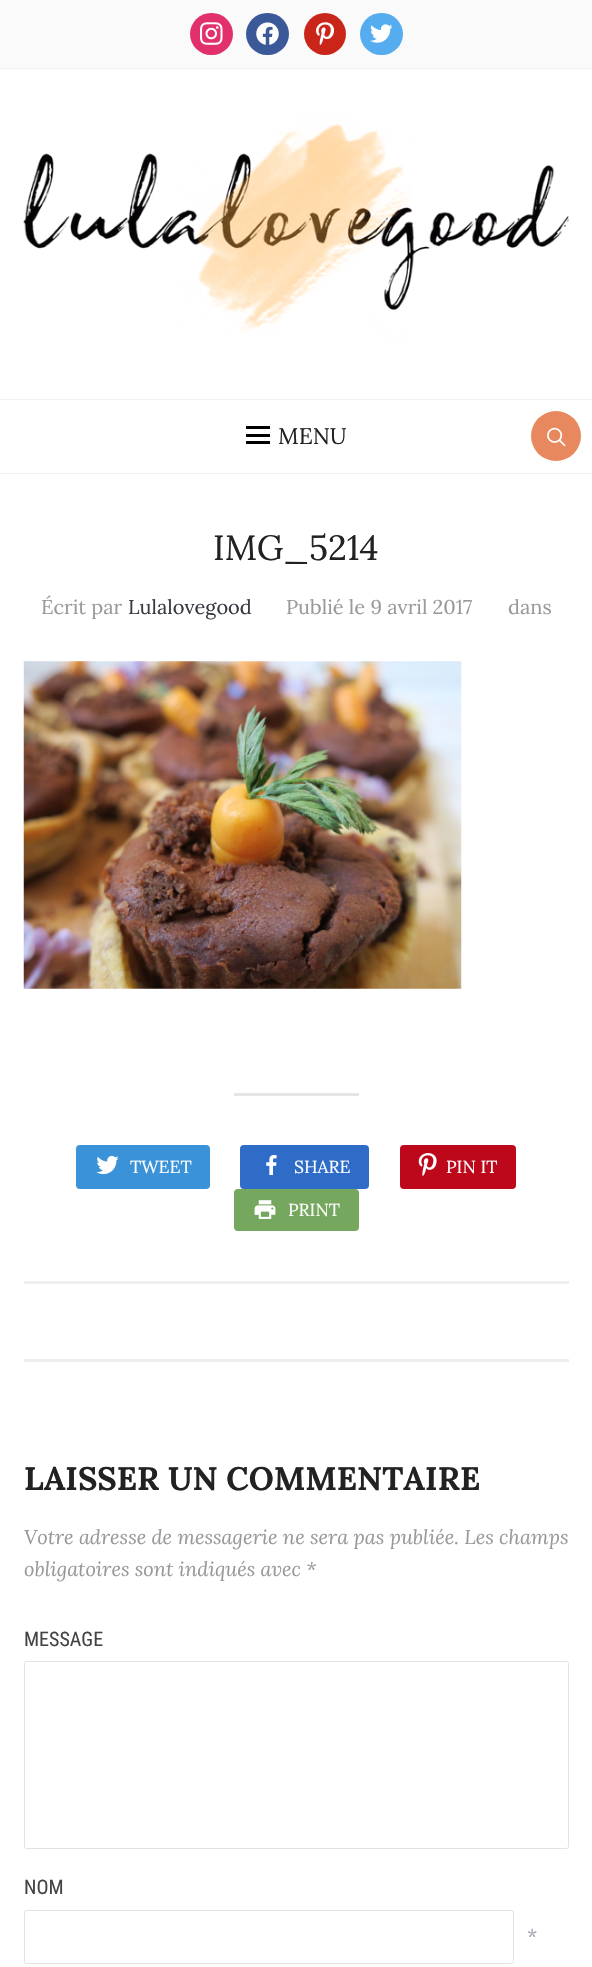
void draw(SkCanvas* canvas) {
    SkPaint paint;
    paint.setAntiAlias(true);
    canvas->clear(0xFFFFFFFF);
    paint.setColor(0xFFFAFAFA);
    canvas->drawRect(SkRect::MakeXYWH(0, 0, 592, 68), paint);
    paint.setColor(0xFFF0F0F0);
    canvas->drawRect(SkRect::MakeXYWH(0, 68, 592, 1), paint);
    paint.setColor(0xFFE1306C);
    canvas->drawRoundRect(SkRect::MakeXYWH(190, 13, 43, 42), 21, 21, paint);
    canvas->drawImageRect(SkImages::DeferredFromEncodedData(SkData::MakeFromFileName("img1.png")), SkRect::MakeXYWH(200, 22, 23, 23), SkSamplingOptions());
    paint.setColor(0xFF3B5998);
    canvas->drawRoundRect(SkRect::MakeXYWH(246, 13, 43, 42), 21, 21, paint);
    canvas->drawImageRect(SkImages::DeferredFromEncodedData(SkData::MakeFromFileName("img2.png")), SkRect::MakeXYWH(256, 22, 23, 23), SkSamplingOptions());
    paint.setColor(0xFFC92619);
    canvas->drawCircle(325, 34, 21, paint);
    canvas->drawImageRect(SkImages::DeferredFromEncodedData(SkData::MakeFromFileName("img3.png")), SkRect::MakeXYWH(316, 22, 18, 23), SkSamplingOptions());
    paint.setColor(0xFF55ACEE);
    canvas->drawRoundRect(SkRect::MakeXYWH(360, 13, 43, 42), 21, 21, paint);
    canvas->drawImageRect(SkImages::DeferredFromEncodedData(SkData::MakeFromFileName("img4.png")), SkRect::MakeXYWH(370, 24, 23, 19), SkSamplingOptions());
    canvas->drawImageRect(SkImages::DeferredFromEncodedData(SkData::MakeFromFileName("img5.png")), SkRect::MakeXYWH(23, 114, 546, 226), SkSamplingOptions());
    paint.setColor(0xFFF0F0F0);
    canvas->drawRect(SkRect::MakeXYWH(0, 399, 592, 1), paint);
    canvas->drawRect(SkRect::MakeXYWH(0, 473, 592, 1), paint);
    paint.setColor(0xFF000000);
    canvas->drawRect(SkRect::MakeXYWH(246, 426, 24, 3), paint);
    canvas->drawRect(SkRect::MakeXYWH(246, 434, 24, 3), paint);
    canvas->drawRect(SkRect::MakeXYWH(246, 441, 24, 3), paint);
    SkFont font1(fontMgr->matchFamilyStyle("Lora", SkFontStyle::Normal()), 22.5f);
    font1.setSubpixel(true);
    paint.setColor(0xFF222222);
    canvas->drawString("MENU", 278, 444, font1, paint);
    paint.setColor(0xFFE8885F);
    canvas->drawCircle(556, 436, 25, paint);
    canvas->drawImageRect(SkImages::DeferredFromEncodedData(SkData::MakeFromFileName("img6.png")), SkRect::MakeXYWH(547, 427, 19, 20), SkSamplingOptions());
    SkFont font2(fontMgr->matchFamilyStyle("Lora", SkFontStyle::Normal()), 35);
    font2.setSubpixel(true);
    paint.setColor(0xFF222222);
    canvas->drawString("IMG_5214", 213, 560, font2, paint);
    SkFont font3(fontMgr->matchFamilyStyle("Lora", SkFontStyle::Normal()), 20);
    font3.setSubpixel(true);
    paint.setColor(0xFF999999);
    canvas->drawString("Écrit par", 41, 614, font3, paint);
    paint.setColor(0xFF363940);
    canvas->drawString("Lulalovegood", 128, 614, font3, paint);
    paint.setColor(0xFF999999);
    canvas->drawString("Publié le 9 avril 2017", 286, 614, font3, paint);
    canvas->drawString("dans", 508, 614, font3, paint);
    canvas->drawImageRect(SkImages::DeferredFromEncodedData(SkData::MakeFromFileName("img7.png")), SkRect::MakeXYWH(23, 661, 439, 328), SkSamplingOptions());
    paint.setColor(0xFFE5E5E5);
    canvas->drawRect(SkRect::MakeXYWH(234, 1093, 125, 3), paint);
    paint.setColor(0xFF3A93D8);
    canvas->drawRoundRect(SkRect::MakeXYWH(76, 1145, 134, 44), 4, 4, paint);
    canvas->drawImageRect(SkImages::DeferredFromEncodedData(SkData::MakeFromFileName("img8.png")), SkRect::MakeXYWH(96, 1155, 23, 20), SkSamplingOptions());
    SkFont font4(fontMgr->matchFamilyStyle("Lora", SkFontStyle::Normal()), 17.5f);
    font4.setSubpixel(true);
    paint.setColor(0xFFFFFFFF);
    canvas->drawString("TWEET", 130, 1173, font4, paint);
    paint.setColor(0xFF2E6CC8);
    canvas->drawRoundRect(SkRect::MakeXYWH(240, 1145, 129, 44), 4, 4, paint);
    canvas->drawImageRect(SkImages::DeferredFromEncodedData(SkData::MakeFromFileName("img9.png")), SkRect::MakeXYWH(266, 1155, 11, 20), SkSamplingOptions());
    paint.setColor(0xFFFFFFFF);
    canvas->drawString("SHARE", 294, 1173, font4, paint);
    paint.setColor(0xFFBD081C);
    canvas->drawRoundRect(SkRect::MakeXYWH(400, 1145, 116, 44), 4, 4, paint);
    canvas->drawImageRect(SkImages::DeferredFromEncodedData(SkData::MakeFromFileName("img10.png")), SkRect::MakeXYWH(418, 1153, 19, 24), SkSamplingOptions());
    paint.setColor(0xFFFFFFFF);
    canvas->drawString("PIN IT", 446, 1173, font4, paint);
    paint.setColor(0xFF76A75E);
    canvas->drawRoundRect(SkRect::MakeXYWH(234, 1189, 125, 42), 4, 4, paint);
    canvas->drawImageRect(SkImages::DeferredFromEncodedData(SkData::MakeFromFileName("img11.png")), SkRect::MakeXYWH(254, 1200, 22, 19), SkSamplingOptions());
    paint.setColor(0xFFFFFFFF);
    canvas->drawString("PRINT", 288, 1216, font4, paint);
    paint.setColor(0xFFEEEEEE);
    canvas->drawRect(SkRect::MakeXYWH(24, 1281, 545, 3), paint);
    canvas->drawRect(SkRect::MakeXYWH(24, 1359, 545, 3), paint);
    SkFont font5(fontMgr->matchFamilyStyle("Lora", SkFontStyle::Bold()), 32.5f);
    font5.setSubpixel(true);
    paint.setColor(0xFF222222);
    canvas->drawString("LAISSER UN COMMENTAIRE", 24, 1490, font5, paint);
    SkFont font6(fontMgr->matchFamilyStyle("Lora", SkFontStyle::Italic()), 20);
    font6.setSubpixel(true);
    paint.setColor(0xFF999999);
    canvas->drawString("Votre adresse de messagerie ne sera pas publiée. Les champs", 24, 1544, font6, paint);
    canvas->drawString("obligatoires sont indiqués avec *", 24, 1576, font6, paint);
    SkFont font7(fontMgr->matchFamilyStyle("Roboto Condensed", SkFontStyle::Normal()), 20);
    font7.setSubpixel(true);
    paint.setColor(0xFF444444);
    canvas->drawString("MESSAGE", 24, 1646, font7, paint);
    paint.setStyle(SkPaint::kStroke_Style);
    paint.setStrokeWidth(1);
    paint.setColor(0xFFE2E2E2);
    canvas->drawRoundRect(SkRect::MakeXYWH(24.5f, 1661.5f, 544, 187), 2, 2, paint);
    paint.setStyle(SkPaint::kFill_Style);
    paint.setColor(0xFF444444);
    canvas->drawString("NOM", 24, 1894, font7, paint);
    paint.setStyle(SkPaint::kStroke_Style);
    paint.setColor(0xFFE2E2E2);
    canvas->drawRoundRect(SkRect::MakeXYWH(24.5f, 1910.5f, 489, 53), 2, 2, paint);
    paint.setStyle(SkPaint::kFill_Style);
    paint.setColor(0xFFA7A7B3);
    canvas->drawString("*", 527, 1943, font3, paint);
}
